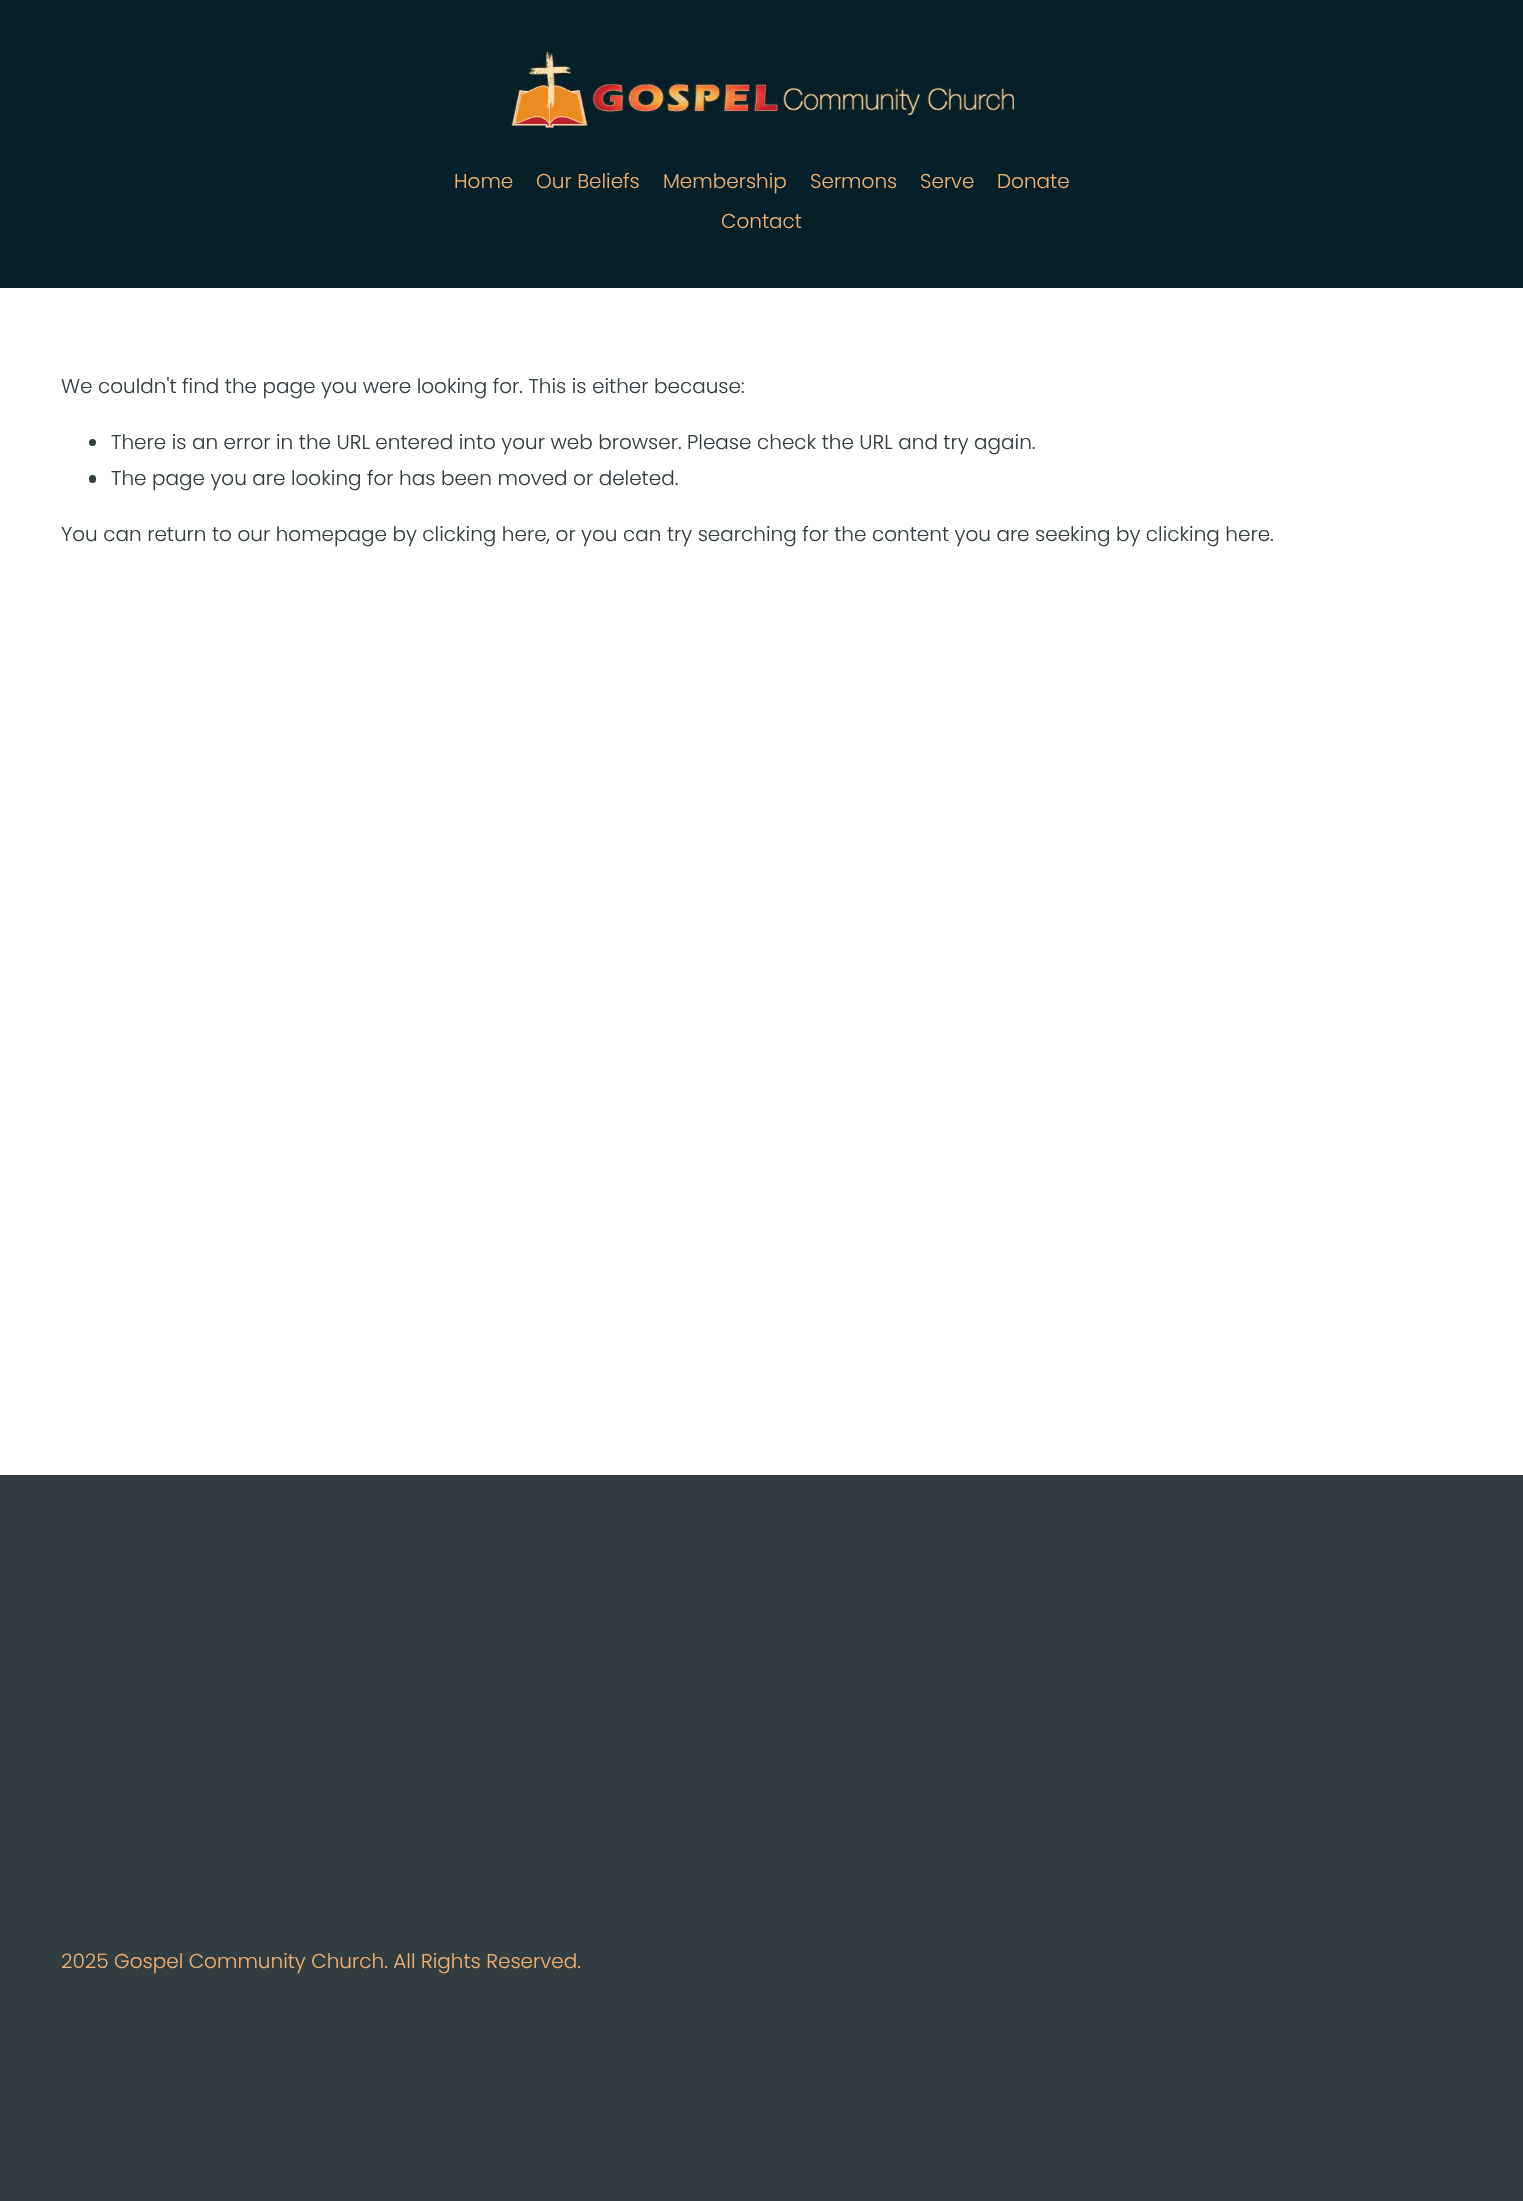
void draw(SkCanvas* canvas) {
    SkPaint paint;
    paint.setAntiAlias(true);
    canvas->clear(0xFFFFFFFF);
    paint.setColor(0xFF061F28);
    canvas->drawRect(SkRect::MakeXYWH(0, 0, 1523, 288), paint);
    canvas->drawImageRect(SkImages::DeferredFromEncodedData(SkData::MakeFromFileName("img1.png")), SkRect::MakeXYWH(510, 51, 506, 78), SkSamplingOptions());
    SkFont font1(fontMgr->matchFamilyStyle("Poppins", SkFontStyle(300, SkFontStyle::kNormal_Width, SkFontStyle::kUpright_Slant)), 20);
    font1.setSubpixel(true);
    paint.setColor(0xFFEFB071);
    canvas->drawString("Home", 454, 188, font1, paint);
    canvas->drawString("Our Beliefs", 536, 188, font1, paint);
    canvas->drawString("Membership", 663, 188, font1, paint);
    canvas->drawString("Sermons", 810, 188, font1, paint);
    canvas->drawString("Serve", 920, 188, font1, paint);
    canvas->drawString("Donate", 997, 188, font1, paint);
    canvas->drawString("Contact", 721, 228, font1, paint);
    paint.setColor(0xFF313D41);
    canvas->drawString("We couldn't find the page you were looking for. This is either because:", 61, 393, font1, paint);
    canvas->drawCircle(92.5f, 442.5f, 3.5f, paint);
    canvas->drawString("There is an error in the URL entered into your web browser. Please check the URL and try again.", 111, 449, font1, paint);
    canvas->drawRoundRect(SkRect::MakeXYWH(89, 475, 7, 8), 3.5f, 3.5f, paint);
    canvas->drawString("The page you are looking for has been moved or deleted.", 111, 485, font1, paint);
    canvas->drawString("You can return to our homepage by clicking here, or you can try searching for the content you are seeking by clicking here.", 61, 541, font1, paint);
    canvas->drawRect(SkRect::MakeXYWH(0, 1475, 1523, 726), paint);
    paint.setColor(0xFFEFB071);
    canvas->drawString("2025 Gospel Community Church. All Rights Reserved.", 61, 1968, font1, paint);
}
